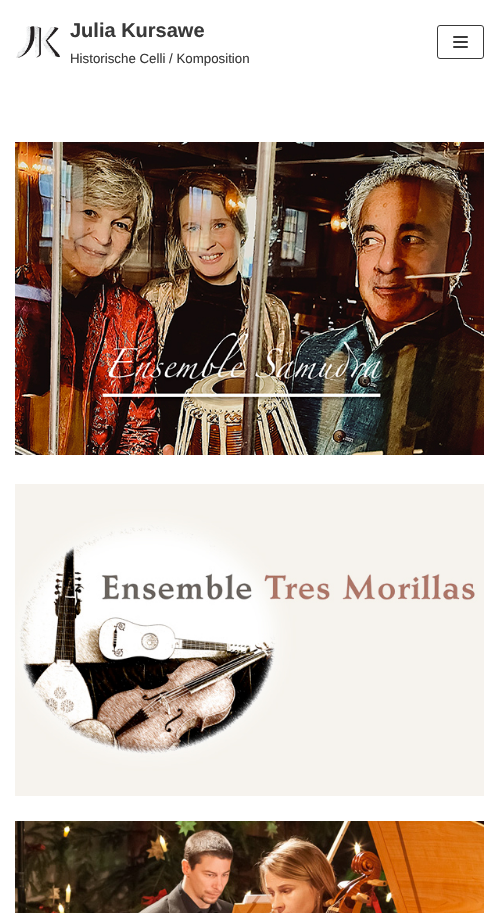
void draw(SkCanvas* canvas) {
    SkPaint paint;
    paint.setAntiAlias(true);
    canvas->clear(0xFFFFFFFF);
    canvas->drawImageRect(SkImages::DeferredFromEncodedData(SkData::MakeFromFileName("img1.png")), SkRect::MakeXYWH(16, 26, 44, 32), SkSamplingOptions());
    SkFont font1(fontMgr->matchFamilyStyle("Liberation Sans", SkFontStyle::Bold()), 20);
    font1.setSubpixel(true);
    paint.setColor(0xFF393939);
    canvas->drawString("Julia Kursawe", 70, 37, font1, paint);
    SkFont font2(fontMgr->matchFamilyStyle("Liberation Sans", SkFontStyle::Normal()), 13.3f);
    font2.setSubpixel(true);
    canvas->drawString("Historische Celli / Komposition", 70, 63, font2, paint);
    paint.setStyle(SkPaint::kStroke_Style);
    paint.setStrokeWidth(1);
    canvas->drawRoundRect(SkRect::MakeXYWH(437.5f, 25.5f, 46, 33), 2.5f, 2.5f, paint);
    paint.setStyle(SkPaint::kFill_Style);
    canvas->drawRoundRect(SkRect::MakeXYWH(453, 36, 15, 2), 1, 1, paint);
    canvas->drawRoundRect(SkRect::MakeXYWH(453, 41, 15, 2), 1, 1, paint);
    canvas->drawRoundRect(SkRect::MakeXYWH(453, 46, 15, 2), 1, 1, paint);
    canvas->drawImageRect(SkImages::DeferredFromEncodedData(SkData::MakeFromFileName("img2.png")), SkRect::MakeXYWH(15, 142, 469, 313), SkSamplingOptions());
    canvas->drawImageRect(SkImages::DeferredFromEncodedData(SkData::MakeFromFileName("img3.png")), SkRect::MakeXYWH(15, 484, 469, 312), SkSamplingOptions());
    canvas->drawImageRect(SkImages::DeferredFromEncodedData(SkData::MakeFromFileName("img4.png")), SkRect::MakeXYWH(15, 821, 469, 92), SkSamplingOptions());
}
